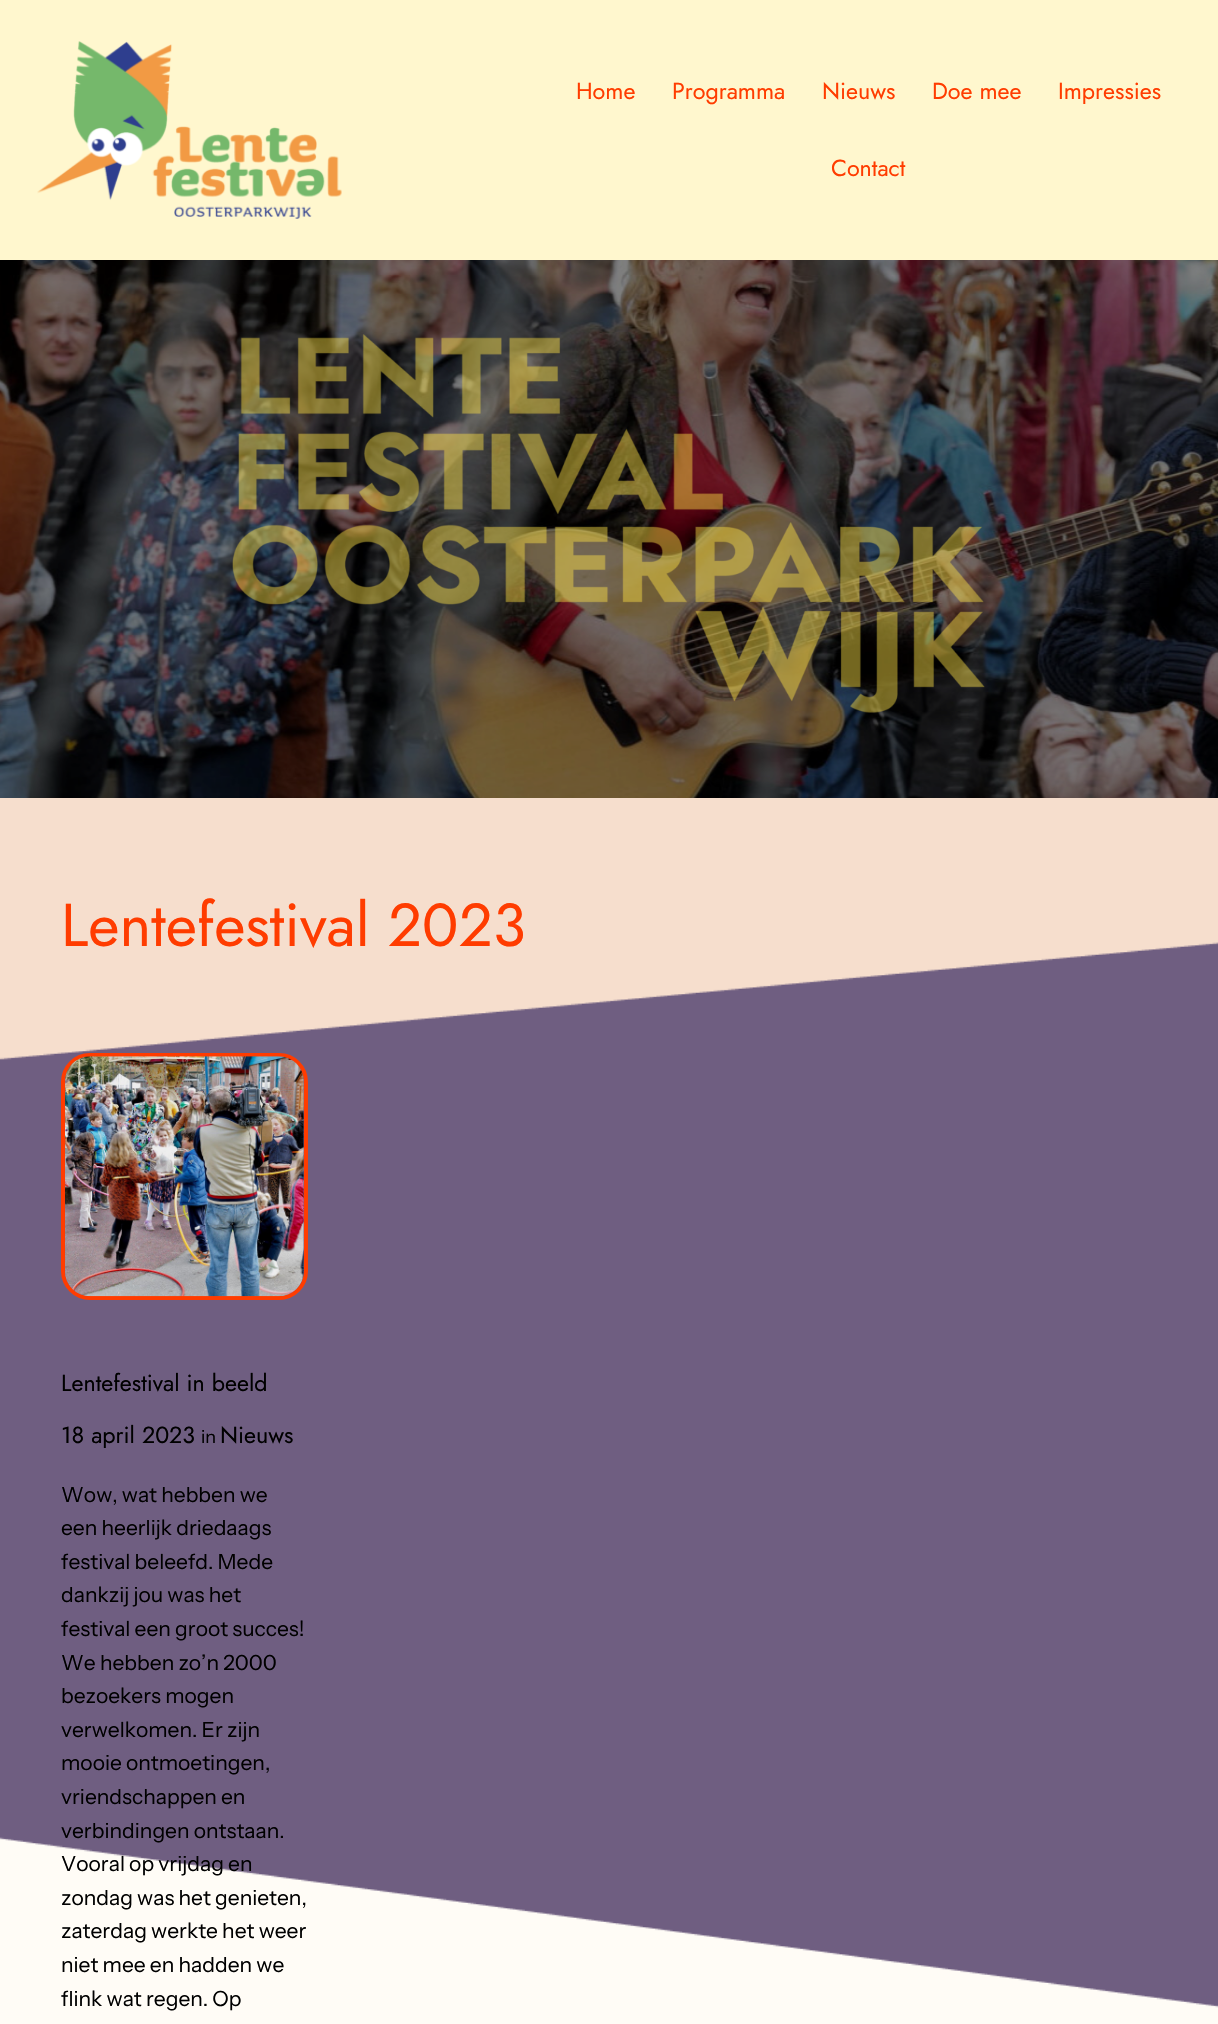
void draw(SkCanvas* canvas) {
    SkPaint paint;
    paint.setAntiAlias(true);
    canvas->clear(0xFFFFFCF6);
    paint.setColor(0xFFFFF7CE);
    canvas->drawRect(SkRect::MakeXYWH(0, 0, 1218, 260), paint);
    canvas->drawImageRect(SkImages::DeferredFromEncodedData(SkData::MakeFromFileName("img1.png")), SkRect::MakeXYWH(37, 41, 305, 178), SkSamplingOptions());
    SkFont font1(fontMgr->matchFamilyStyle("Jost", SkFontStyle::Normal()), 23.25f);
    font1.setSubpixel(true);
    paint.setColor(0xFFFF3C00);
    canvas->drawString("Home", 576, 99, font1, paint);
    canvas->drawString("Programma", 672, 99, font1, paint);
    canvas->drawString("Nieuws", 822, 99, font1, paint);
    canvas->drawString("Doe mee", 932, 99, font1, paint);
    canvas->drawString("Impressies", 1058, 99, font1, paint);
    canvas->drawString("Contact", 831, 176, font1, paint);
    canvas->drawImageRect(SkImages::DeferredFromEncodedData(SkData::MakeFromFileName("img2.png")), SkRect::MakeXYWH(0, 260, 1218, 538), SkSamplingOptions());
    canvas->drawImageRect(SkImages::DeferredFromEncodedData(SkData::MakeFromFileName("img3.png")), SkRect::MakeXYWH(232, 334, 753, 379), SkSamplingOptions());
    canvas->drawImageRect(SkImages::DeferredFromEncodedData(SkData::MakeFromFileName("img4.png")), SkRect::MakeXYWH(0, 798, 1218, 1210), SkSamplingOptions());
    SkFont font2(fontMgr->matchFamilyStyle("Jost", SkFontStyle::Normal()), 60.5f);
    font2.setSubpixel(true);
    canvas->drawString("Lentefestival 2023", 61, 946, font2, paint);
    paint.setStyle(SkPaint::kStroke_Style);
    paint.setStrokeWidth(4);
    canvas->drawRoundRect(SkRect::MakeXYWH(63, 1055, 243, 243), 27, 27, paint);
    canvas->drawImageRect(SkImages::DeferredFromEncodedData(SkData::MakeFromFileName("img5.png")), SkRect::MakeXYWH(65, 1056, 239, 241), SkSamplingOptions());
    paint.setStyle(SkPaint::kFill_Style);
    paint.setColor(0xFF000000);
    canvas->drawString("Lentefestival in beeld", 61, 1391, font1, paint);
    canvas->drawString("18 april 2023", 61, 1443, font1, paint);
    SkFont font3(fontMgr->matchFamilyStyle("Instrument Sans", SkFontStyle::Normal()), 18);
    font3.setSubpixel(true);
    canvas->drawString("in", 201, 1443, font3, paint);
    canvas->drawString("Nieuws", 220, 1443, font1, paint);
    SkFont font4(fontMgr->matchFamilyStyle("Instrument Sans", SkFontStyle::Normal()), 21);
    font4.setSubpixel(true);
    canvas->drawString("Wow, wat hebben we", 61, 1502, font4, paint);
    canvas->drawString("een heerlijk driedaags", 61, 1535, font4, paint);
    canvas->drawString("festival beleefd. Mede", 61, 1569, font4, paint);
    canvas->drawString("dankzij jou was het", 61, 1602, font4, paint);
    canvas->drawString("festival een groot succes!", 61, 1636, font4, paint);
    canvas->drawString("We hebben zo’n 2000", 61, 1670, font4, paint);
    canvas->drawString("bezoekers mogen", 61, 1703, font4, paint);
    canvas->drawString("verwelkomen. Er zijn", 61, 1737, font4, paint);
    canvas->drawString("mooie ontmoetingen,", 61, 1770, font4, paint);
    canvas->drawString("vriendschappen en", 61, 1804, font4, paint);
    canvas->drawString("verbindingen ontstaan.", 61, 1838, font4, paint);
    canvas->drawString("Vooral op vrijdag en", 61, 1871, font4, paint);
    canvas->drawString("zondag was het genieten,", 61, 1905, font4, paint);
    canvas->drawString("zaterdag werkte het weer", 61, 1938, font4, paint);
    canvas->drawString("niet mee en hadden we", 61, 1972, font4, paint);
    canvas->drawString("flink wat regen. Op", 61, 2006, font4, paint);
}
